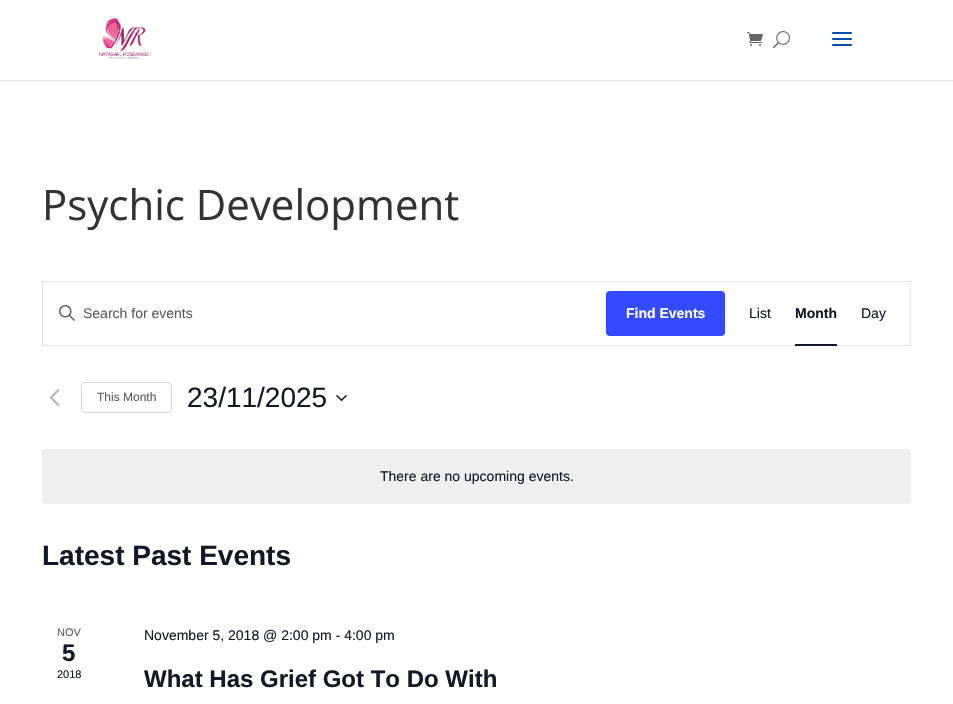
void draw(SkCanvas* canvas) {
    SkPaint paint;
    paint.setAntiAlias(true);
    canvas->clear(0xFFFFFFFF);
    paint.setColor(0xFFE6E6E6);
    canvas->drawRect(SkRect::MakeXYWH(0, 80, 953, 1), paint);
    canvas->drawImageRect(SkImages::DeferredFromEncodedData(SkData::MakeFromFileName("img1.png")), SkRect::MakeXYWH(99, 18, 50, 42), SkSamplingOptions());
    canvas->drawImageRect(SkImages::DeferredFromEncodedData(SkData::MakeFromFileName("img2.png")), SkRect::MakeXYWH(747, 32, 16, 14), SkSamplingOptions());
    canvas->drawImageRect(SkImages::DeferredFromEncodedData(SkData::MakeFromFileName("img3.png")), SkRect::MakeXYWH(773, 31, 17, 18), SkSamplingOptions());
    canvas->drawImageRect(SkImages::DeferredFromEncodedData(SkData::MakeFromFileName("img4.png")), SkRect::MakeXYWH(832, 32, 20, 14), SkSamplingOptions());
    SkFont font1(fontMgr->matchFamilyStyle("Open Sans", SkFontStyle::Normal()), 42);
    font1.setSubpixel(true);
    paint.setColor(0xFF333333);
    canvas->drawString("Psychic Development", 42, 220, font1, paint);
    paint.setStyle(SkPaint::kStroke_Style);
    paint.setStrokeWidth(1);
    paint.setColor(0xFFE4E4E4);
    canvas->drawRect(SkRect::MakeXYWH(42.5f, 281.5f, 868, 64), paint);
    canvas->drawImageRect(SkImages::DeferredFromEncodedData(SkData::MakeFromFileName("img5.png")), SkRect::MakeXYWH(59, 305, 16, 16), SkSamplingOptions());
    SkFont font2(fontMgr->matchFamilyStyle("Liberation Sans", SkFontStyle::Normal()), 14);
    font2.setSubpixel(true);
    paint.setStyle(SkPaint::kFill_Style);
    paint.setColor(0xFF5D5D5D);
    canvas->drawString("Search for events", 83, 318, font2, paint);
    paint.setColor(0xFF334AFF);
    canvas->drawRoundRect(SkRect::MakeXYWH(606, 291, 119, 45), 4, 4, paint);
    SkFont font3(fontMgr->matchFamilyStyle("Liberation Sans", SkFontStyle::Bold()), 14);
    font3.setSubpixel(true);
    paint.setColor(0xFFFFFFFF);
    canvas->drawString("Find Events", 626, 318, font3, paint);
    paint.setColor(0xFF141827);
    canvas->drawString("List", 749, 318, font2, paint);
    canvas->drawString("Month", 795, 318, font3, paint);
    canvas->drawRect(SkRect::MakeXYWH(795, 344, 42, 2), paint);
    canvas->drawString("Day", 861, 318, font2, paint);
    canvas->drawImageRect(SkImages::DeferredFromEncodedData(SkData::MakeFromFileName("img6.png")), SkRect::MakeXYWH(49, 389, 11, 17), SkSamplingOptions());
    paint.setStyle(SkPaint::kStroke_Style);
    paint.setColor(0xFFD5D5D5);
    canvas->drawRoundRect(SkRect::MakeXYWH(81.5f, 382.5f, 90, 30), 3.5f, 3.5f, paint);
    SkFont font4(fontMgr->matchFamilyStyle("Liberation Sans", SkFontStyle::Normal()), 12);
    font4.setSubpixel(true);
    paint.setStyle(SkPaint::kFill_Style);
    paint.setColor(0xFF5D5D5D);
    canvas->drawString("This Month", 97, 401, font4, paint);
    SkFont font5(fontMgr->matchFamilyStyle("Liberation Sans", SkFontStyle::Normal()), 28);
    font5.setSubpixel(true);
    paint.setColor(0xFF141827);
    canvas->drawString("23/11/2025", 187, 407, font5, paint);
    canvas->drawImageRect(SkImages::DeferredFromEncodedData(SkData::MakeFromFileName("img7.png")), SkRect::MakeXYWH(336, 394, 11, 8), SkSamplingOptions());
    paint.setColor(0xFFEFEFF0);
    canvas->drawRoundRect(SkRect::MakeXYWH(42, 449, 869, 55), 4, 4, paint);
    paint.setColor(0xFF141827);
    canvas->drawString("There are no upcoming events.", 380, 481, font2, paint);
    SkFont font6(fontMgr->matchFamilyStyle("Liberation Sans", SkFontStyle::Bold()), 28);
    font6.setSubpixel(true);
    canvas->drawString("Latest Past Events", 42, 565, font6, paint);
    SkFont font7(fontMgr->matchFamilyStyle("Liberation Sans", SkFontStyle::Normal()), 11);
    font7.setSubpixel(true);
    paint.setColor(0xFF5D5D5D);
    canvas->drawString("NOV", 57, 636, font7, paint);
    SkFont font8(fontMgr->matchFamilyStyle("Liberation Sans", SkFontStyle::Bold()), 24);
    font8.setSubpixel(true);
    paint.setColor(0xFF141827);
    canvas->drawString("5", 62, 661, font8, paint);
    canvas->drawString("2018", 57, 678, font7, paint);
    canvas->drawString("November 5, 2018 @ 2:00 pm - 4:00 pm", 144, 640, font2, paint);
    canvas->drawString("What Has Grief Got To Do With", 144, 687, font8, paint);
}
